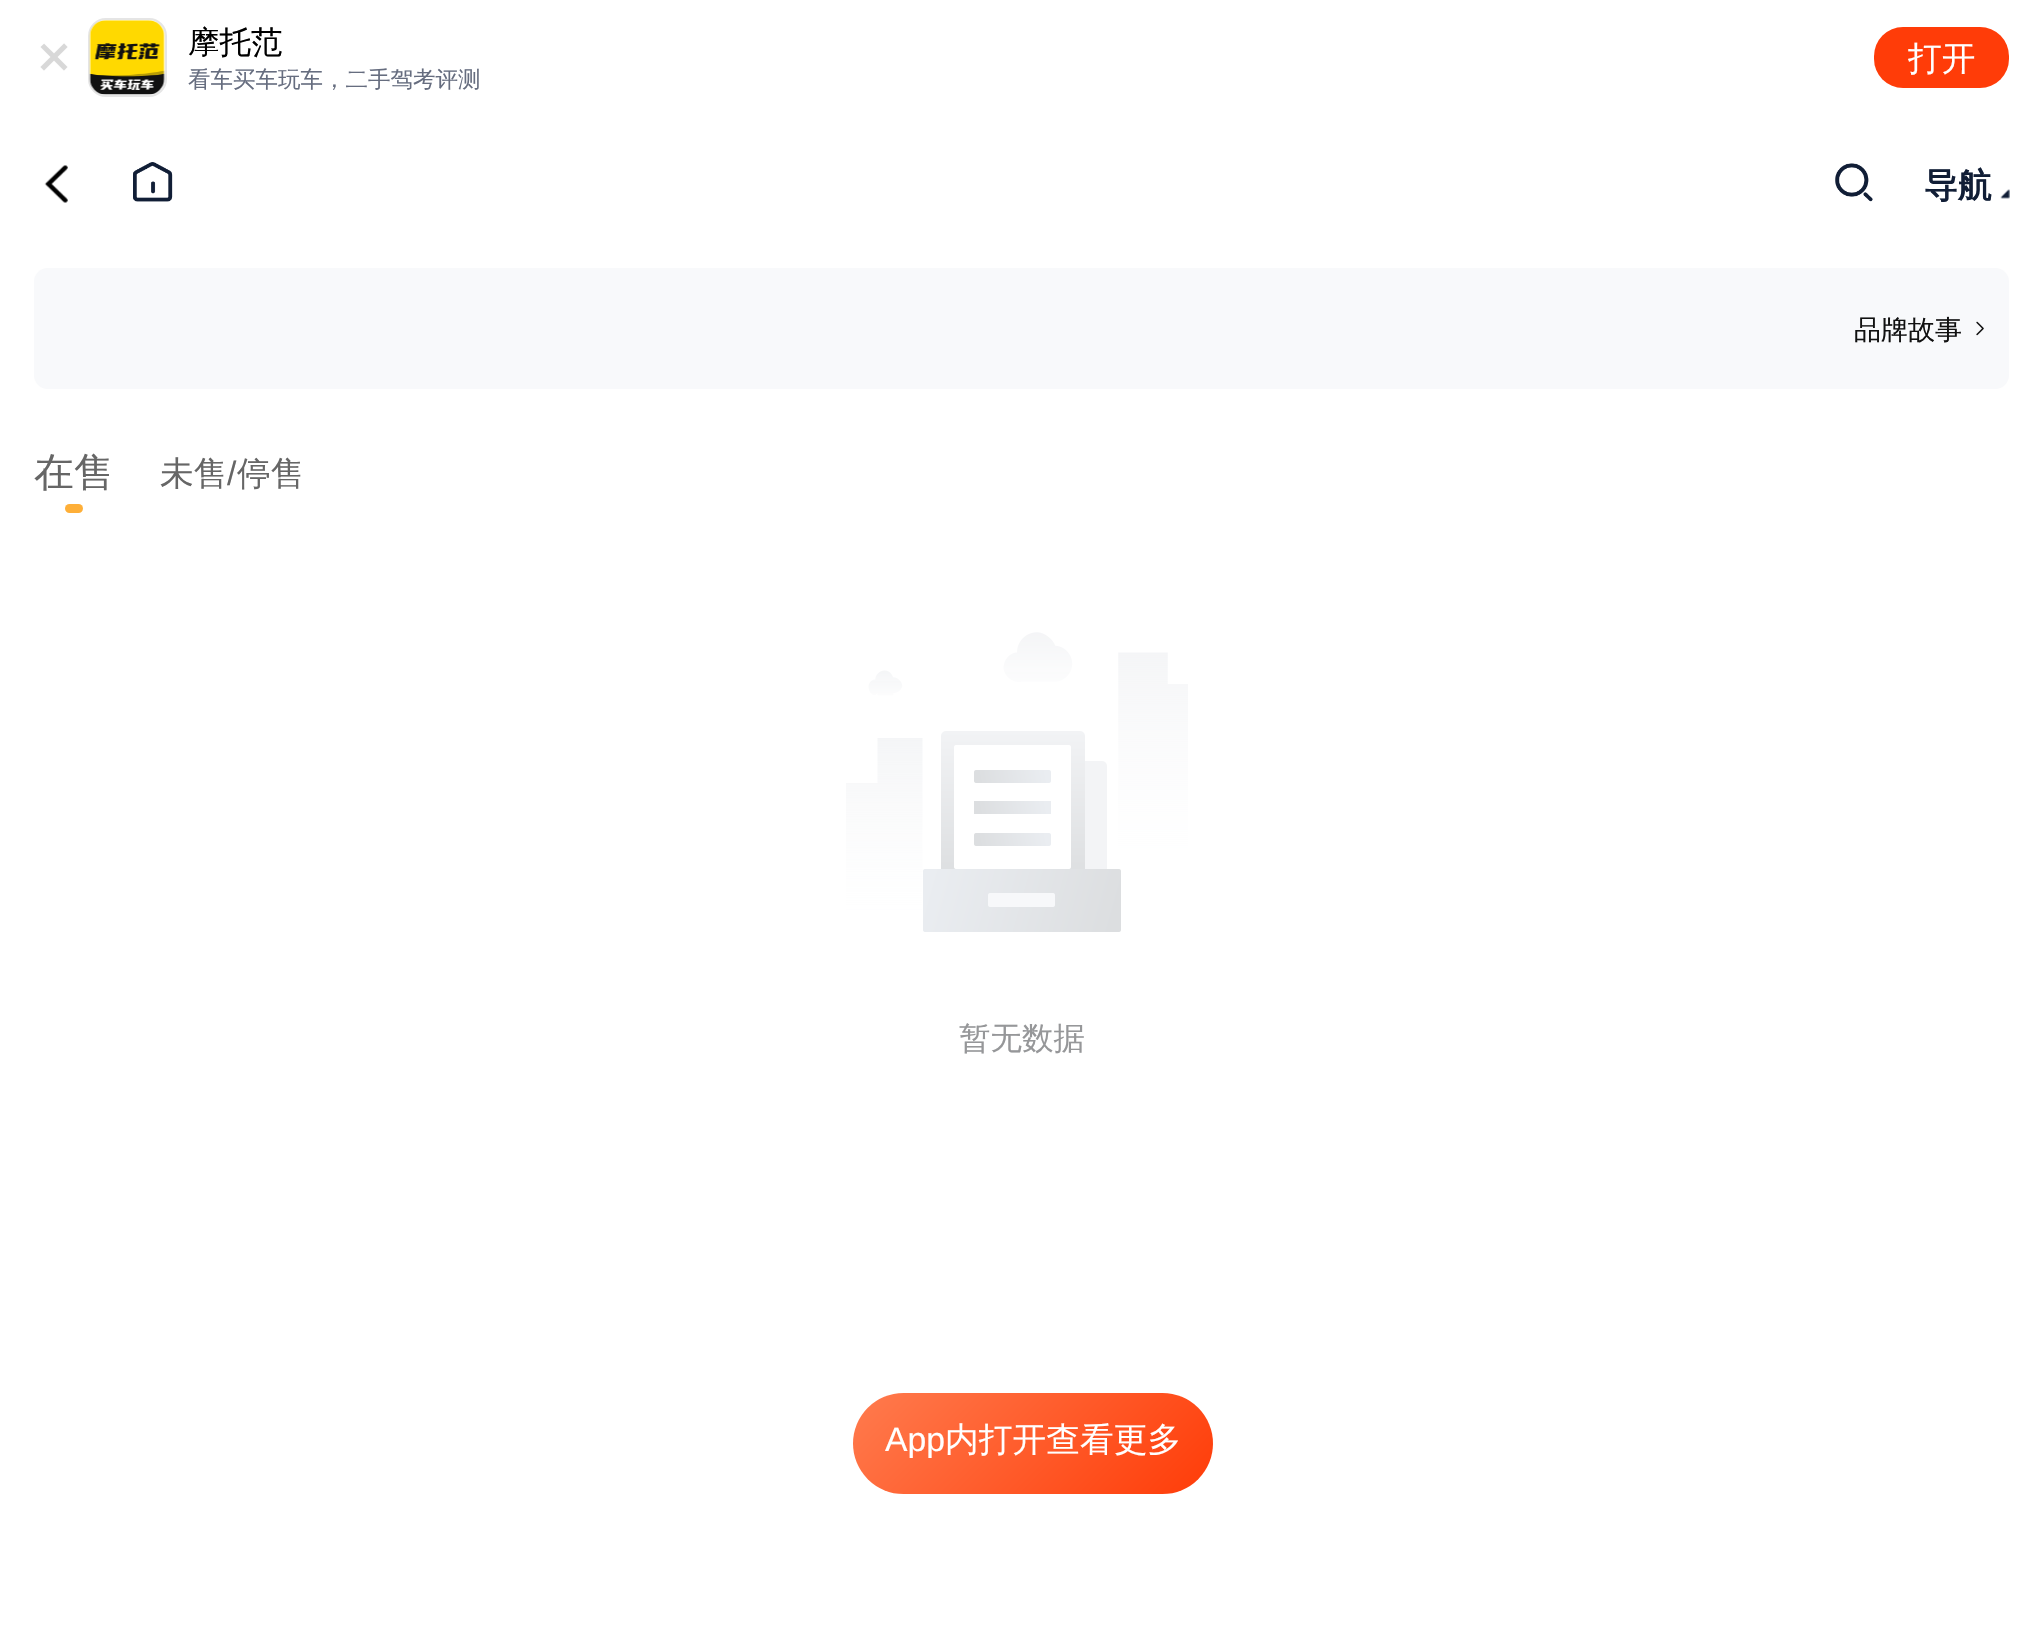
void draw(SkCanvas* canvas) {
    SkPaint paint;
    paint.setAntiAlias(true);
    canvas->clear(0xFFFFFFFF);
    SkFont font1(fontMgr->matchFamilyStyle("Liberation Sans", SkFontStyle::Normal()), 68);
    font1.setSubpixel(true);
    paint.setColor(0xFFD8D8D8);
    canvas->save();
    canvas->rotate(45, 24, 59);
    canvas->drawString("+", 24, 59, font1, paint);
    canvas->restore();
    paint.setStyle(SkPaint::kStroke_Style);
    paint.setStrokeWidth(2);
    paint.setColor(0xFFE5E5E5);
    canvas->drawRoundRect(SkRect::MakeXYWH(89, 19, 77, 77), 17, 17, paint);
    canvas->drawImageRect(SkImages::DeferredFromEncodedData(SkData::MakeFromFileName("img1.png")), SkRect::MakeXYWH(89, 20, 76, 75), SkSamplingOptions());
    SkFont font2(fontMgr->matchFamilyStyle("WenQuanYi Zen Hei", SkFontStyle(500, SkFontStyle::kNormal_Width, SkFontStyle::kUpright_Slant)), 31.5f);
    font2.setSubpixel(true);
    paint.setStyle(SkPaint::kFill_Style);
    paint.setColor(0xFF000000);
    canvas->drawString("摩托范", 188, 53, font2, paint);
    SkFont font3(fontMgr->matchFamilyStyle("WenQuanYi Zen Hei", SkFontStyle(500, SkFontStyle::kNormal_Width, SkFontStyle::kUpright_Slant)), 22.5f);
    font3.setSubpixel(true);
    paint.setColor(0xFF666D7F);
    canvas->drawString("看车买车玩车，二手驾考评测", 188, 87, font3, paint);
    paint.setColor(0xFFFF3C08);
    canvas->drawRoundRect(SkRect::MakeXYWH(1874, 27, 135, 61), 29, 29, paint);
    SkFont font4(fontMgr->matchFamilyStyle("WenQuanYi Zen Hei", SkFontStyle(500, SkFontStyle::kNormal_Width, SkFontStyle::kUpright_Slant)), 33.75f);
    font4.setSubpixel(true);
    paint.setColor(0xFFFFFFFF);
    canvas->drawString("打开", 1908, 70, font4, paint);
    {
        const SkColor colors[] = {0xFFFF3C08, 0xFFFF7B4E};
        const float stops[] = {0, 1};
        const SkPoint ends[] = {{1148, 1559}, {917, 1328}};
        paint.setShader(SkGradientShader::MakeLinear(ends, colors, stops, 2, SkTileMode::kClamp));
        paint.setAlpha(255);
    }
    canvas->drawRoundRect(SkRect::MakeXYWH(853, 1393, 360, 101), 50.5f, 50.5f, paint);
    SkFont font5(fontMgr->matchFamilyStyle("Liberation Sans", SkFontStyle::Normal()), 33.75f);
    font5.setSubpixel(true);
    paint.setShader(nullptr);
    paint.setColor(0xFFFFFFFF);
    canvas->drawString("App", 885, 1451, font5, paint);
    canvas->drawString("内打开查看更多", 945, 1451, font4, paint);
    canvas->drawImageRect(SkImages::DeferredFromEncodedData(SkData::MakeFromFileName("img2.png")), SkRect::MakeXYWH(44, 165, 24, 38), SkSamplingOptions());
    canvas->drawImageRect(SkImages::DeferredFromEncodedData(SkData::MakeFromFileName("img3.png")), SkRect::MakeXYWH(133, 162, 40, 40), SkSamplingOptions());
    canvas->drawImageRect(SkImages::DeferredFromEncodedData(SkData::MakeFromFileName("img4.png")), SkRect::MakeXYWH(1835, 163, 38, 39), SkSamplingOptions());
    SkFont font6(fontMgr->matchFamilyStyle("WenQuanYi Zen Hei", SkFontStyle::Bold()), 33.75f);
    font6.setSubpixel(true);
    paint.setColor(0xFF111E36);
    canvas->drawString("导航", 1924, 197, font6, paint);
    canvas->drawImageRect(SkImages::DeferredFromEncodedData(SkData::MakeFromFileName("img5.png")), SkRect::MakeXYWH(2000, 189, 10, 10), SkSamplingOptions());
    paint.setColor(0xFFF8F9FB);
    canvas->drawRoundRect(SkRect::MakeXYWH(34, 268, 1975, 121), 14, 14, paint);
    SkFont font7(fontMgr->matchFamilyStyle("WenQuanYi Zen Hei", SkFontStyle(500, SkFontStyle::kNormal_Width, SkFontStyle::kUpright_Slant)), 27);
    font7.setSubpixel(true);
    paint.setColor(0xFF111111);
    canvas->drawString("品牌故事", 1854, 339, font7, paint);
    canvas->drawImageRect(SkImages::DeferredFromEncodedData(SkData::MakeFromFileName("img6.png")), SkRect::MakeXYWH(1976, 321, 8, 15), SkSamplingOptions());
    SkFont font8(fontMgr->matchFamilyStyle("WenQuanYi Zen Hei", SkFontStyle(500, SkFontStyle::kNormal_Width, SkFontStyle::kUpright_Slant)), 40);
    font8.setSubpixel(true);
    paint.setColor(0xFF666666);
    canvas->drawString("在售", 34, 486, font8, paint);
    paint.setColor(0xFFFEAF38);
    canvas->drawRoundRect(SkRect::MakeXYWH(65, 504, 18, 9), 4.5f, 4.5f, paint);
    paint.setColor(0xFF666666);
    canvas->drawString("未售", 160, 485, font4, paint);
    canvas->drawString("/", 227, 485, font5, paint);
    canvas->drawString("停售", 237, 485, font4, paint);
    canvas->drawImageRect(SkImages::DeferredFromEncodedData(SkData::MakeFromFileName("img7.png")), SkRect::MakeXYWH(846, 632, 342, 300), SkSamplingOptions());
    paint.setColor(0xFF969799);
    canvas->drawString("暂无数据", 959, 1049, font2, paint);
}
